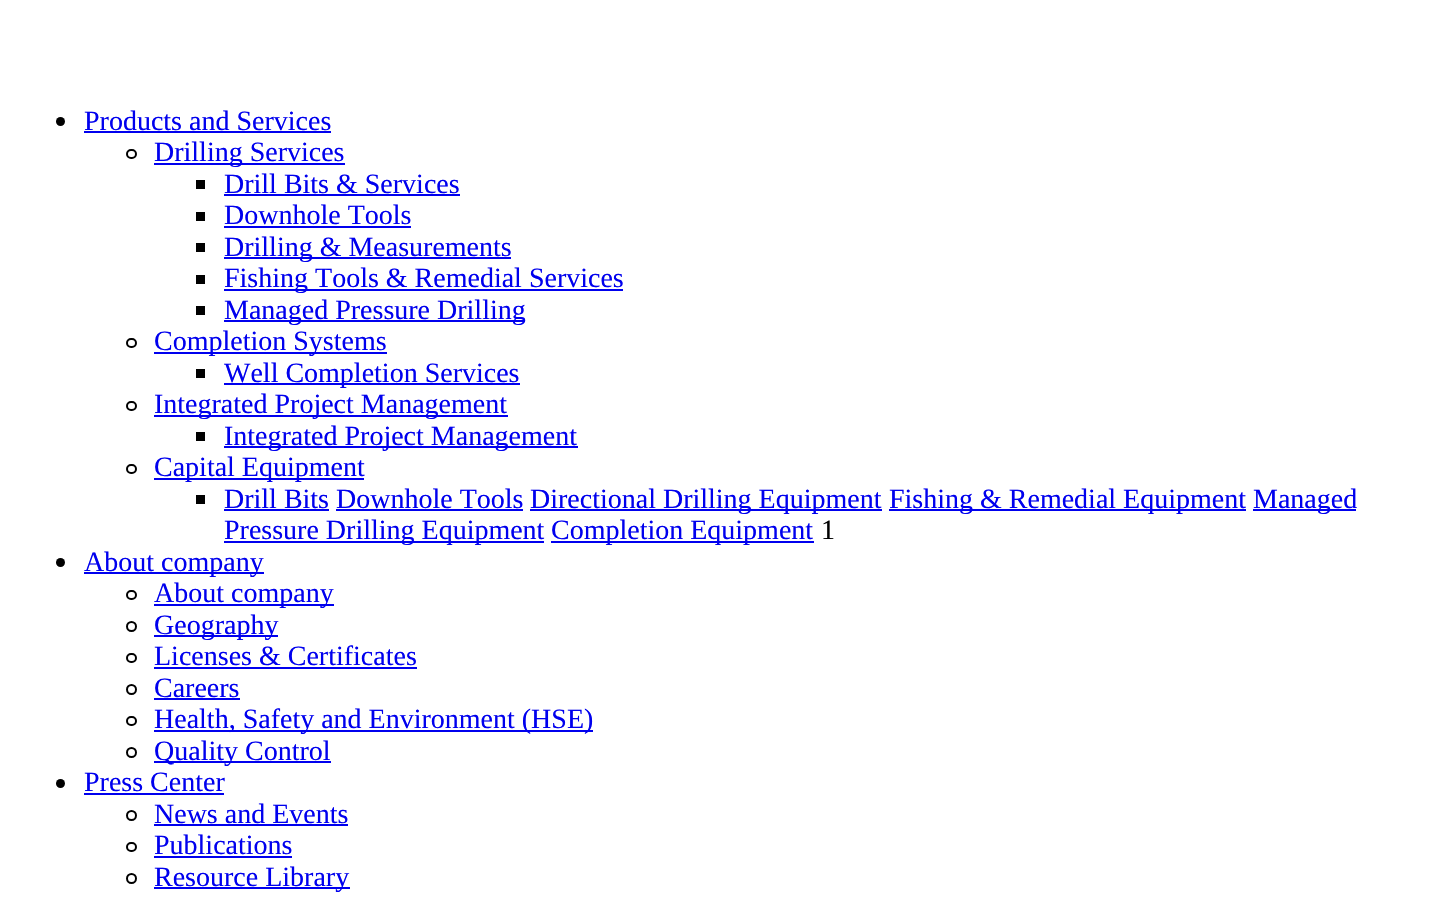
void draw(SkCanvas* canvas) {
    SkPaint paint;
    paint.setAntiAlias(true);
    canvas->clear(0xFFFFFFFF);
    paint.setColor(0xFF000000);
    canvas->drawCircle(60.5f, 121.5f, 4.5f, paint);
    SkFont font1(fontMgr->matchFamilyStyle("Liberation Serif", SkFontStyle::Normal()), 28);
    font1.setSubpixel(true);
    paint.setColor(0xFF0000EE);
    canvas->drawString("Products and Services", 84, 130, font1, paint);
    canvas->drawRect(SkRect::MakeXYWH(84, 131, 247, 2), paint);
    paint.setStyle(SkPaint::kStroke_Style);
    paint.setStrokeWidth(2);
    paint.setColor(0xFF000000);
    canvas->drawRoundRect(SkRect::MakeXYWH(127, 150, 9, 8), 4, 4, paint);
    paint.setStyle(SkPaint::kFill_Style);
    paint.setColor(0xFF0000EE);
    canvas->drawRect(SkRect::MakeXYWH(154, 163, 191, 2), paint);
    canvas->drawString("Drilling Services", 154, 161, font1, paint);
    paint.setColor(0xFF000000);
    canvas->drawRect(SkRect::MakeXYWH(196, 180, 9, 9), paint);
    paint.setColor(0xFF0000EE);
    canvas->drawString("Drill Bits & Services", 224, 193, font1, paint);
    canvas->drawRect(SkRect::MakeXYWH(224, 194, 236, 2), paint);
    paint.setColor(0xFF000000);
    canvas->drawRect(SkRect::MakeXYWH(196, 212, 9, 9), paint);
    paint.setColor(0xFF0000EE);
    canvas->drawString("Downhole Tools", 224, 224, font1, paint);
    canvas->drawRect(SkRect::MakeXYWH(224, 226, 187, 2), paint);
    paint.setColor(0xFF000000);
    canvas->drawRect(SkRect::MakeXYWH(196, 243, 9, 9), paint);
    paint.setColor(0xFF0000EE);
    canvas->drawRect(SkRect::MakeXYWH(224, 257, 287, 2), paint);
    canvas->drawString("Drilling & Measurements", 224, 256, font1, paint);
    paint.setColor(0xFF000000);
    canvas->drawRect(SkRect::MakeXYWH(196, 275, 9, 9), paint);
    paint.setColor(0xFF0000EE);
    canvas->drawRect(SkRect::MakeXYWH(224, 289, 399, 2), paint);
    canvas->drawString("Fishing Tools & Remedial Services", 224, 287, font1, paint);
    paint.setColor(0xFF000000);
    canvas->drawRect(SkRect::MakeXYWH(196, 306, 9, 9), paint);
    paint.setColor(0xFF0000EE);
    canvas->drawRect(SkRect::MakeXYWH(224, 320, 301, 2), paint);
    canvas->drawString("Managed Pressure Drilling", 224, 319, font1, paint);
    paint.setStyle(SkPaint::kStroke_Style);
    paint.setColor(0xFF000000);
    canvas->drawRoundRect(SkRect::MakeXYWH(127, 339, 9, 8), 4, 4, paint);
    paint.setStyle(SkPaint::kFill_Style);
    paint.setColor(0xFF0000EE);
    canvas->drawRect(SkRect::MakeXYWH(154, 352, 233, 2), paint);
    canvas->drawString("Completion Systems", 154, 350, font1, paint);
    paint.setColor(0xFF000000);
    canvas->drawRect(SkRect::MakeXYWH(196, 369, 9, 9), paint);
    paint.setColor(0xFF0000EE);
    canvas->drawRect(SkRect::MakeXYWH(224, 383, 296, 2), paint);
    canvas->drawString("Well Completion Services", 224, 382, font1, paint);
    paint.setStyle(SkPaint::kStroke_Style);
    paint.setColor(0xFF000000);
    canvas->drawRoundRect(SkRect::MakeXYWH(127, 402, 9, 8), 4, 4, paint);
    paint.setStyle(SkPaint::kFill_Style);
    paint.setColor(0xFF0000EE);
    canvas->drawRect(SkRect::MakeXYWH(154, 415, 354, 2), paint);
    canvas->drawString("Integrated Project Management", 154, 413, font1, paint);
    paint.setColor(0xFF000000);
    canvas->drawRect(SkRect::MakeXYWH(196, 432, 9, 9), paint);
    paint.setColor(0xFF0000EE);
    canvas->drawRect(SkRect::MakeXYWH(224, 446, 354, 2), paint);
    canvas->drawString("Integrated Project Management", 224, 445, font1, paint);
    paint.setStyle(SkPaint::kStroke_Style);
    paint.setColor(0xFF000000);
    canvas->drawRoundRect(SkRect::MakeXYWH(127, 465, 9, 8), 4, 4, paint);
    paint.setStyle(SkPaint::kFill_Style);
    paint.setColor(0xFF0000EE);
    canvas->drawRect(SkRect::MakeXYWH(154, 478, 210, 2), paint);
    canvas->drawString("Capital Equipment", 154, 476, font1, paint);
    paint.setColor(0xFF000000);
    canvas->drawRect(SkRect::MakeXYWH(196, 495, 9, 9), paint);
    paint.setColor(0xFF0000EE);
    canvas->drawString("Drill Bits Downhole Tools", 224, 508, font1, paint);
    canvas->drawRect(SkRect::MakeXYWH(224, 509, 105, 2), paint);
    canvas->drawRect(SkRect::MakeXYWH(530, 509, 352, 2), paint);
    canvas->drawString("Directional Drilling Equipment", 530, 508, font1, paint);
    canvas->drawRect(SkRect::MakeXYWH(889, 509, 357, 2), paint);
    canvas->drawString("Fishing & Remedial Equipment", 889, 508, font1, paint);
    canvas->drawRect(SkRect::MakeXYWH(1253, 509, 103, 2), paint);
    canvas->drawString("Managed", 1253, 508, font1, paint);
    canvas->drawRect(SkRect::MakeXYWH(336, 509, 187, 2), paint);
    canvas->drawRect(SkRect::MakeXYWH(224, 541, 320, 2), paint);
    canvas->drawString("Pressure Drilling Equipment", 224, 539, font1, paint);
    canvas->drawRect(SkRect::MakeXYWH(551, 541, 263, 2), paint);
    canvas->drawString("Completion Equipment", 551, 539, font1, paint);
    paint.setColor(0xFF000000);
    canvas->drawString("1", 821, 539, font1, paint);
    canvas->drawCircle(60.5f, 562.5f, 4.5f, paint);
    paint.setColor(0xFF0000EE);
    canvas->drawRect(SkRect::MakeXYWH(84, 572, 180, 2), paint);
    canvas->drawString("About company", 84, 571, font1, paint);
    paint.setStyle(SkPaint::kStroke_Style);
    paint.setColor(0xFF000000);
    canvas->drawRoundRect(SkRect::MakeXYWH(127, 591, 9, 8), 4, 4, paint);
    paint.setStyle(SkPaint::kFill_Style);
    paint.setColor(0xFF0000EE);
    canvas->drawRect(SkRect::MakeXYWH(154, 604, 180, 2), paint);
    canvas->drawString("About company", 154, 602, font1, paint);
    paint.setStyle(SkPaint::kStroke_Style);
    paint.setColor(0xFF000000);
    canvas->drawCircle(131.5f, 626.5f, 4.5f, paint);
    paint.setStyle(SkPaint::kFill_Style);
    paint.setColor(0xFF0000EE);
    canvas->drawRect(SkRect::MakeXYWH(154, 635, 124, 2), paint);
    canvas->drawString("Geography", 154, 634, font1, paint);
    paint.setStyle(SkPaint::kStroke_Style);
    paint.setColor(0xFF000000);
    canvas->drawRoundRect(SkRect::MakeXYWH(127, 654, 9, 8), 4, 4, paint);
    paint.setStyle(SkPaint::kFill_Style);
    paint.setColor(0xFF0000EE);
    canvas->drawString("Licenses & Certificates", 154, 665, font1, paint);
    canvas->drawRect(SkRect::MakeXYWH(154, 667, 263, 2), paint);
    paint.setStyle(SkPaint::kStroke_Style);
    paint.setColor(0xFF000000);
    canvas->drawCircle(131.5f, 689.5f, 4.5f, paint);
    paint.setStyle(SkPaint::kFill_Style);
    paint.setColor(0xFF0000EE);
    canvas->drawString("Careers", 154, 697, font1, paint);
    canvas->drawRect(SkRect::MakeXYWH(154, 698, 86, 2), paint);
    paint.setStyle(SkPaint::kStroke_Style);
    paint.setColor(0xFF000000);
    canvas->drawRoundRect(SkRect::MakeXYWH(127, 717, 9, 8), 4, 4, paint);
    paint.setStyle(SkPaint::kFill_Style);
    paint.setColor(0xFF0000EE);
    canvas->drawRect(SkRect::MakeXYWH(154, 730, 439, 2), paint);
    canvas->drawString("Health, Safety and Environment (HSE)", 154, 728, font1, paint);
    paint.setStyle(SkPaint::kStroke_Style);
    paint.setColor(0xFF000000);
    canvas->drawCircle(131.5f, 752.5f, 4.5f, paint);
    paint.setStyle(SkPaint::kFill_Style);
    paint.setColor(0xFF0000EE);
    canvas->drawRect(SkRect::MakeXYWH(154, 761, 177, 2), paint);
    canvas->drawString("Quality Control", 154, 760, font1, paint);
    paint.setColor(0xFF000000);
    canvas->drawCircle(60.5f, 783.5f, 4.5f, paint);
    paint.setColor(0xFF0000EE);
    canvas->drawString("Press Center", 84, 791, font1, paint);
    canvas->drawRect(SkRect::MakeXYWH(84, 793, 140, 2), paint);
    paint.setStyle(SkPaint::kStroke_Style);
    paint.setColor(0xFF000000);
    canvas->drawCircle(131.5f, 815.5f, 4.5f, paint);
    paint.setStyle(SkPaint::kFill_Style);
    paint.setColor(0xFF0000EE);
    canvas->drawString("News and Events", 154, 823, font1, paint);
    canvas->drawRect(SkRect::MakeXYWH(154, 824, 194, 2), paint);
    paint.setStyle(SkPaint::kStroke_Style);
    paint.setColor(0xFF000000);
    canvas->drawRoundRect(SkRect::MakeXYWH(127, 843, 9, 8), 4, 4, paint);
    paint.setStyle(SkPaint::kFill_Style);
    paint.setColor(0xFF0000EE);
    canvas->drawString("Publications", 154, 854, font1, paint);
    canvas->drawRect(SkRect::MakeXYWH(154, 856, 138, 2), paint);
    paint.setStyle(SkPaint::kStroke_Style);
    paint.setColor(0xFF000000);
    canvas->drawCircle(131.5f, 878.5f, 4.5f, paint);
    paint.setStyle(SkPaint::kFill_Style);
    paint.setColor(0xFF0000EE);
    canvas->drawRect(SkRect::MakeXYWH(154, 887, 196, 2), paint);
    canvas->drawString("Resource Library", 154, 886, font1, paint);
}
